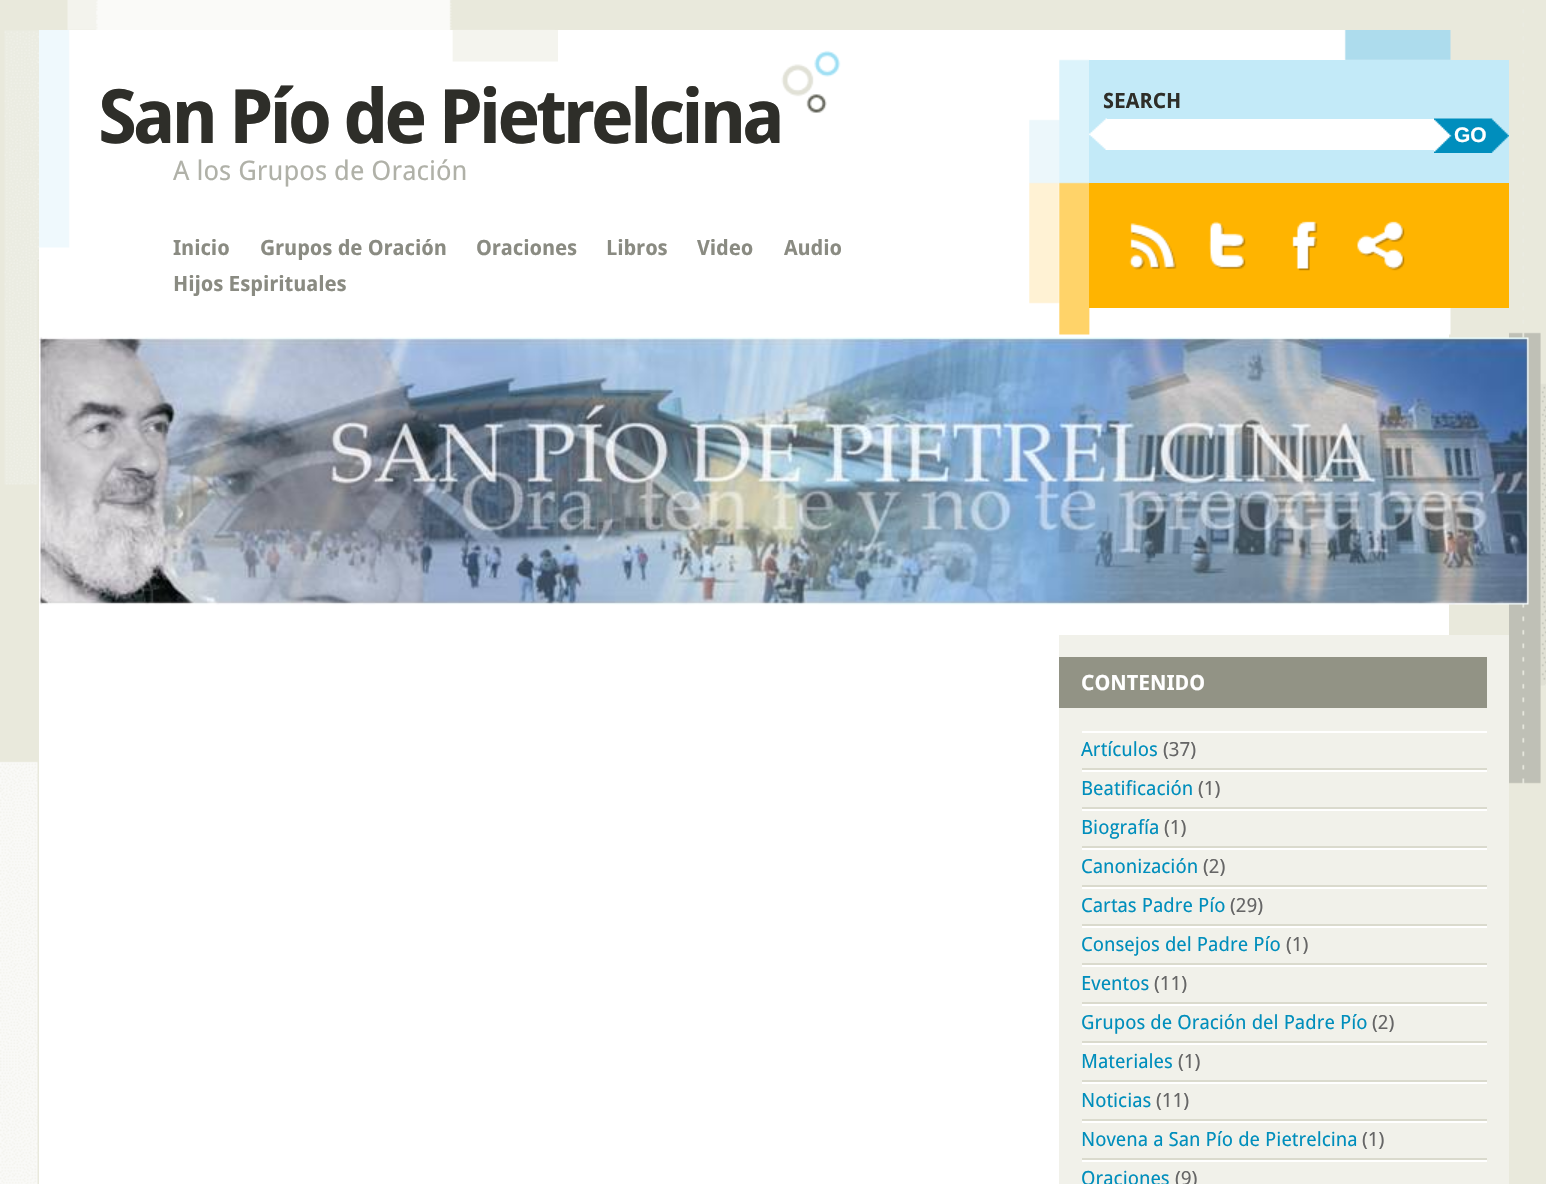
void draw(SkCanvas* canvas) {
    SkPaint paint;
    paint.setAntiAlias(true);
    auto spacedText = [&](const char* s, float x, float y, const SkFont& font, const SkPaint& ink, float letter, float word) {
        std::vector<SkGlyphID> glyphs(font.countText(s, strlen(s), SkTextEncoding::kUTF8));
        std::vector<float> xs(glyphs.size());
        font.textToGlyphs(s, strlen(s), SkTextEncoding::kUTF8, glyphs);
        font.getXPos(glyphs, xs, x);
        float extra = 0;
        for (size_t i = 0; i < glyphs.size(); i++) {
            xs[i] += extra;
            extra += letter + word * (glyphs[i] == font.unicharToGlyph(' '));
        }
        canvas->drawTextBlob(SkTextBlob::MakeFromPosHGlyphs(glyphs, xs, y, font), 0, 0, ink);
    };
    canvas->clear(0xFFFFFFFF);
    canvas->drawImageRect(SkImages::DeferredFromEncodedData(SkData::MakeFromFileName("img1.png")), SkRect::MakeXYWH(0, 0, 1546, 1184), SkSamplingOptions());
    paint.setColor(0xFFFFFFFF);
    canvas->drawRect(SkRect::MakeXYWH(39, 30, 1410, 1154), paint);
    paint.setColor(0xFFE9E9DC);
    canvas->drawRect(SkRect::MakeXYWH(1507, 332, 2, 303), paint);
    canvas->drawImageRect(SkImages::DeferredFromEncodedData(SkData::MakeFromFileName("img2.png")), SkRect::MakeXYWH(39, 30, 519, 218), SkSamplingOptions());
    SkFont font1(fontMgr->matchFamilyStyle("Droid Sans", SkFontStyle::Bold()), 75);
    font1.setSubpixel(true);
    paint.setColor(0xFF2E2E29);
    spacedText("San Pío de Pietrelcina", 98, 143, font1, paint, -4.5f, 0);
    canvas->drawImageRect(SkImages::DeferredFromEncodedData(SkData::MakeFromFileName("img3.png")), SkRect::MakeXYWH(781, 50, 60, 63), SkSamplingOptions());
    SkFont font2(fontMgr->matchFamilyStyle("Droid Sans", SkFontStyle::Normal()), 27);
    font2.setSubpixel(true);
    paint.setColor(0xFFB0B1A8);
    canvas->drawString("A los Grupos de Oración", 173, 180, font2, paint);
    SkFont font3(fontMgr->matchFamilyStyle("Droid Sans", SkFontStyle::Bold()), 21);
    font3.setSubpixel(true);
    paint.setColor(0xFF8A8B82);
    spacedText("Inicio", 173, 255, font3, paint, -0.1f, 0);
    spacedText("Grupos de Oración", 260, 255, font3, paint, -0.1f, 0);
    spacedText("Oraciones", 476, 255, font3, paint, -0.1f, 0);
    spacedText("Libros", 606, 255, font3, paint, -0.1f, 0);
    spacedText("Video", 697, 255, font3, paint, -0.1f, 0);
    spacedText("Audio", 784, 255, font3, paint, -0.1f, 0);
    spacedText("Hijos Espirituales", 173, 291, font3, paint, -0.1f, 0);
    canvas->drawImageRect(SkImages::DeferredFromEncodedData(SkData::MakeFromFileName("img4.png")), SkRect::MakeXYWH(1029, 30, 422, 305), SkSamplingOptions());
    paint.setColor(0xFFC3EAF8);
    canvas->drawRect(SkRect::MakeXYWH(1089, 60, 420, 123), paint);
    paint.setColor(0xFF2E2E29);
    canvas->drawString("SEARCH", 1103, 108, font3, paint);
    paint.setColor(0xFFFFFFFF);
    canvas->drawRect(SkRect::MakeXYWH(1107, 119, 327, 31), paint);
    canvas->drawImageRect(SkImages::DeferredFromEncodedData(SkData::MakeFromFileName("img5.png")), SkRect::MakeXYWH(1089, 118, 18, 32), SkSamplingOptions());
    canvas->drawImageRect(SkImages::DeferredFromEncodedData(SkData::MakeFromFileName("img6.png")), SkRect::MakeXYWH(1434, 118, 75, 35), SkSamplingOptions());
    SkFont font4(fontMgr->matchFamilyStyle("Liberation Sans", SkFontStyle::Bold()), 21);
    font4.setSubpixel(true);
    canvas->drawString("GO", 1454, 142, font4, paint);
    paint.setColor(0xFFFFB400);
    canvas->drawRect(SkRect::MakeXYWH(1089, 183, 420, 125), paint);
    canvas->drawImageRect(SkImages::DeferredFromEncodedData(SkData::MakeFromFileName("img7.png")), SkRect::MakeXYWH(1129, 223, 48, 47), SkSamplingOptions());
    canvas->drawImageRect(SkImages::DeferredFromEncodedData(SkData::MakeFromFileName("img8.png")), SkRect::MakeXYWH(1209, 221, 37, 48), SkSamplingOptions());
    canvas->drawImageRect(SkImages::DeferredFromEncodedData(SkData::MakeFromFileName("img9.png")), SkRect::MakeXYWH(1292, 221, 26, 50), SkSamplingOptions());
    canvas->drawImageRect(SkImages::DeferredFromEncodedData(SkData::MakeFromFileName("img10.png")), SkRect::MakeXYWH(1357, 221, 48, 50), SkSamplingOptions());
    canvas->drawImageRect(SkImages::DeferredFromEncodedData(SkData::MakeFromFileName("img11.png")), SkRect::MakeXYWH(39, 337, 1490, 268), SkSamplingOptions());
    paint.setColor(0xFFF1F1EA);
    canvas->drawRect(SkRect::MakeXYWH(1059, 635, 450, 549), paint);
    paint.setColor(0xFF929385);
    canvas->drawRect(SkRect::MakeXYWH(1059, 657, 428, 51), paint);
    paint.setColor(0xFFFFFFFF);
    canvas->drawString("CONTENIDO", 1081, 690, font3, paint);
    canvas->drawRect(SkRect::MakeXYWH(1082, 731, 405, 2), paint);
    paint.setColor(0xFFDADACD);
    canvas->drawRect(SkRect::MakeXYWH(1082, 768, 405, 2), paint);
    SkFont font5(fontMgr->matchFamilyStyle("Droid Sans", SkFontStyle::Normal()), 19.5f);
    font5.setSubpixel(true);
    paint.setColor(0xFF008EBC);
    canvas->drawString("Artículos", 1081, 756, font5, paint);
    paint.setColor(0xFF666666);
    canvas->drawString("(37)", 1163, 756, font5, paint);
    paint.setColor(0xFFFFFFFF);
    canvas->drawRect(SkRect::MakeXYWH(1082, 770, 405, 2), paint);
    paint.setColor(0xFFDADACD);
    canvas->drawRect(SkRect::MakeXYWH(1082, 807, 405, 2), paint);
    paint.setColor(0xFF008EBC);
    canvas->drawString("Beatificación", 1081, 795, font5, paint);
    paint.setColor(0xFF666666);
    canvas->drawString("(1)", 1198, 795, font5, paint);
    paint.setColor(0xFFFFFFFF);
    canvas->drawRect(SkRect::MakeXYWH(1082, 809, 405, 2), paint);
    paint.setColor(0xFFDADACD);
    canvas->drawRect(SkRect::MakeXYWH(1082, 846, 405, 2), paint);
    paint.setColor(0xFF008EBC);
    canvas->drawString("Biografía", 1081, 834, font5, paint);
    paint.setColor(0xFF666666);
    canvas->drawString("(1)", 1164, 834, font5, paint);
    paint.setColor(0xFFFFFFFF);
    canvas->drawRect(SkRect::MakeXYWH(1082, 848, 405, 2), paint);
    paint.setColor(0xFFDADACD);
    canvas->drawRect(SkRect::MakeXYWH(1082, 885, 405, 2), paint);
    paint.setColor(0xFF008EBC);
    canvas->drawString("Canonización", 1081, 873, font5, paint);
    paint.setColor(0xFF666666);
    canvas->drawString("(2)", 1203, 873, font5, paint);
    paint.setColor(0xFFFFFFFF);
    canvas->drawRect(SkRect::MakeXYWH(1082, 887, 405, 2), paint);
    paint.setColor(0xFFDADACD);
    canvas->drawRect(SkRect::MakeXYWH(1082, 924, 405, 2), paint);
    paint.setColor(0xFF008EBC);
    canvas->drawString("Cartas Padre Pío", 1081, 912, font5, paint);
    paint.setColor(0xFF666666);
    canvas->drawString("(29)", 1230, 912, font5, paint);
    paint.setColor(0xFFFFFFFF);
    canvas->drawRect(SkRect::MakeXYWH(1082, 926, 405, 2), paint);
    paint.setColor(0xFFDADACD);
    canvas->drawRect(SkRect::MakeXYWH(1082, 963, 405, 2), paint);
    paint.setColor(0xFF008EBC);
    canvas->drawString("Consejos del Padre Pío", 1081, 951, font5, paint);
    paint.setColor(0xFF666666);
    canvas->drawString("(1)", 1286, 951, font5, paint);
    paint.setColor(0xFFFFFFFF);
    canvas->drawRect(SkRect::MakeXYWH(1082, 965, 405, 2), paint);
    paint.setColor(0xFFDADACD);
    canvas->drawRect(SkRect::MakeXYWH(1082, 1002, 405, 2), paint);
    paint.setColor(0xFF008EBC);
    canvas->drawString("Eventos", 1081, 990, font5, paint);
    paint.setColor(0xFF666666);
    canvas->drawString("(11)", 1154, 990, font5, paint);
    paint.setColor(0xFFFFFFFF);
    canvas->drawRect(SkRect::MakeXYWH(1082, 1004, 405, 2), paint);
    paint.setColor(0xFFDADACD);
    canvas->drawRect(SkRect::MakeXYWH(1082, 1041, 405, 2), paint);
    paint.setColor(0xFF008EBC);
    canvas->drawString("Grupos de Oración del Padre Pío", 1081, 1029, font5, paint);
    paint.setColor(0xFF666666);
    canvas->drawString("(2)", 1372, 1029, font5, paint);
    paint.setColor(0xFFFFFFFF);
    canvas->drawRect(SkRect::MakeXYWH(1082, 1043, 405, 2), paint);
    paint.setColor(0xFFDADACD);
    canvas->drawRect(SkRect::MakeXYWH(1082, 1080, 405, 2), paint);
    paint.setColor(0xFF008EBC);
    canvas->drawString("Materiales", 1081, 1068, font5, paint);
    paint.setColor(0xFF666666);
    canvas->drawString("(1)", 1178, 1068, font5, paint);
    paint.setColor(0xFFFFFFFF);
    canvas->drawRect(SkRect::MakeXYWH(1082, 1082, 405, 2), paint);
    paint.setColor(0xFFDADACD);
    canvas->drawRect(SkRect::MakeXYWH(1082, 1119, 405, 2), paint);
    paint.setColor(0xFF008EBC);
    canvas->drawString("Noticias", 1081, 1107, font5, paint);
    paint.setColor(0xFF666666);
    canvas->drawString("(11)", 1156, 1107, font5, paint);
    paint.setColor(0xFFFFFFFF);
    canvas->drawRect(SkRect::MakeXYWH(1082, 1121, 405, 2), paint);
    paint.setColor(0xFFDADACD);
    canvas->drawRect(SkRect::MakeXYWH(1082, 1158, 405, 2), paint);
    paint.setColor(0xFF008EBC);
    canvas->drawString("Novena a San Pío de Pietrelcina", 1081, 1146, font5, paint);
    paint.setColor(0xFF666666);
    canvas->drawString("(1)", 1362, 1146, font5, paint);
    paint.setColor(0xFFFFFFFF);
    canvas->drawRect(SkRect::MakeXYWH(1082, 1160, 405, 2), paint);
    paint.setColor(0xFF008EBC);
    canvas->drawString("Oraciones", 1081, 1185, font5, paint);
    paint.setColor(0xFF666666);
    canvas->drawString("(9)", 1175, 1185, font5, paint);
}
